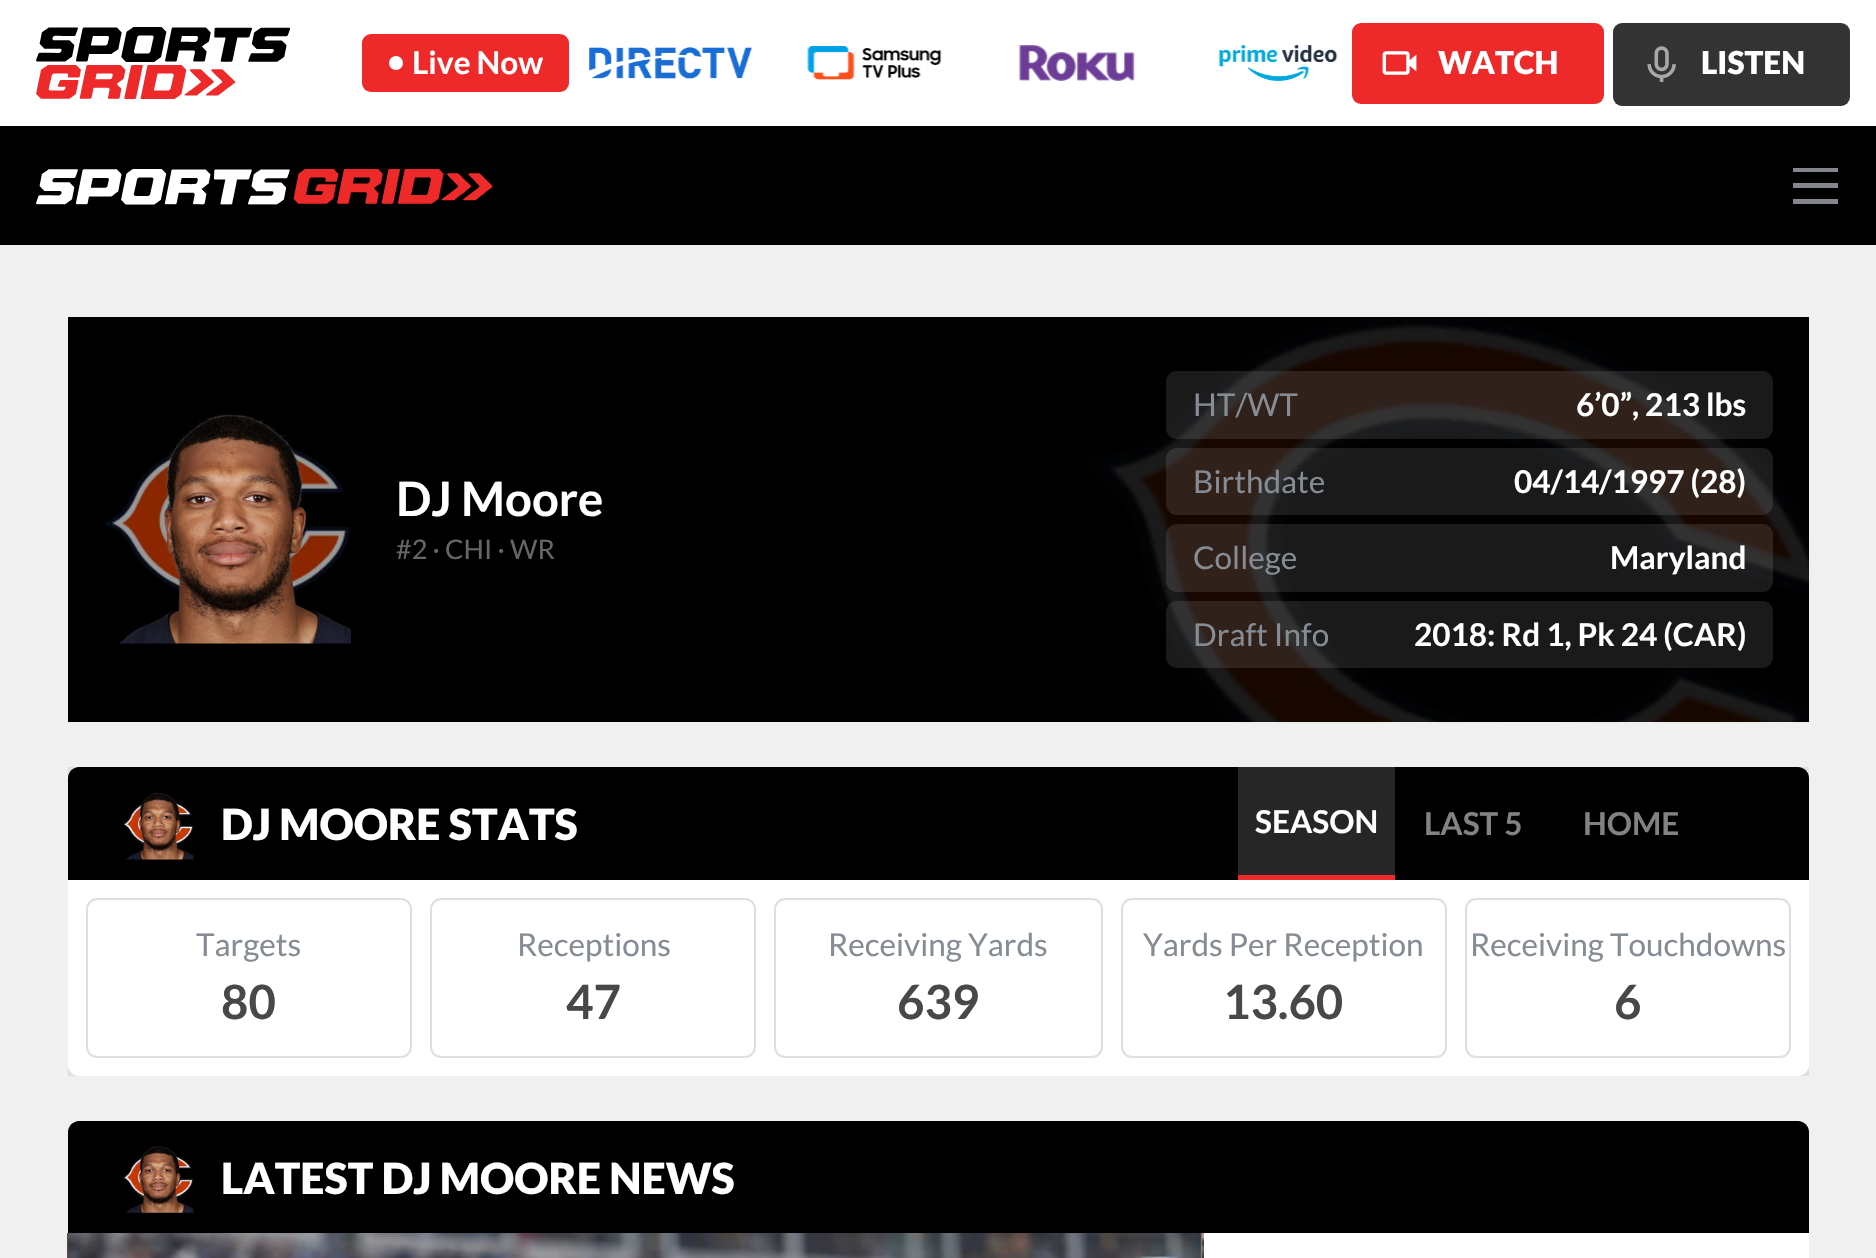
void draw(SkCanvas* canvas) {
    SkPaint paint;
    paint.setAntiAlias(true);
    canvas->clear(0xFFF0F0F0);
    paint.setColor(0xFFFFFFFF);
    canvas->drawRect(SkRect::MakeXYWH(0, 0, 1876, 126), paint);
    canvas->drawImageRect(SkImages::DeferredFromEncodedData(SkData::MakeFromFileName("img1.png")), SkRect::MakeXYWH(36, 27, 254, 72), SkSamplingOptions());
    paint.setColor(0xFFEE292A);
    canvas->drawRoundRect(SkRect::MakeXYWH(362, 34, 207, 58), 9, 9, paint);
    paint.setColor(0xFFFFFFFF);
    canvas->drawCircle(396, 63, 7, paint);
    SkFont font1(fontMgr->matchFamilyStyle("Lato", SkFontStyle::Bold()), 31.5f);
    font1.setSubpixel(true);
    canvas->drawString("Live Now", 412, 74, font1, paint);
    canvas->drawImageRect(SkImages::DeferredFromEncodedData(SkData::MakeFromFileName("img2.png")), SkRect::MakeXYWH(589, 47, 164, 32), SkSamplingOptions());
    canvas->drawImageRect(SkImages::DeferredFromEncodedData(SkData::MakeFromFileName("img3.png")), SkRect::MakeXYWH(807, 46, 135, 34), SkSamplingOptions());
    canvas->drawImageRect(SkImages::DeferredFromEncodedData(SkData::MakeFromFileName("img4.png")), SkRect::MakeXYWH(1019, 45, 116, 36), SkSamplingOptions());
    canvas->drawImageRect(SkImages::DeferredFromEncodedData(SkData::MakeFromFileName("img5.png")), SkRect::MakeXYWH(1219, 45, 119, 36), SkSamplingOptions());
    paint.setColor(0xFFEE292A);
    canvas->drawRoundRect(SkRect::MakeXYWH(1352, 23, 252, 81), 9, 9, paint);
    canvas->drawImageRect(SkImages::DeferredFromEncodedData(SkData::MakeFromFileName("img6.png")), SkRect::MakeXYWH(1382, 51, 35, 24), SkSamplingOptions());
    SkFont font2(fontMgr->matchFamilyStyle("Lato", SkFontStyle(900, SkFontStyle::kNormal_Width, SkFontStyle::kUpright_Slant)), 31.5f);
    font2.setSubpixel(true);
    paint.setColor(0xFFFFFFFF);
    canvas->drawString("WATCH", 1438, 74, font2, paint);
    paint.setColor(0xFF333333);
    canvas->drawRoundRect(SkRect::MakeXYWH(1613, 23, 237, 83), 9, 9, paint);
    canvas->drawImageRect(SkImages::DeferredFromEncodedData(SkData::MakeFromFileName("img7.png")), SkRect::MakeXYWH(1647, 46, 29, 36), SkSamplingOptions());
    paint.setColor(0xFFFFFFFF);
    canvas->drawString("LISTEN", 1701, 74, font2, paint);
    paint.setColor(0xFF000000);
    canvas->drawRect(SkRect::MakeXYWH(0, 126, 1876, 119), paint);
    canvas->drawImageRect(SkImages::DeferredFromEncodedData(SkData::MakeFromFileName("img8.png")), SkRect::MakeXYWH(36, 169, 457, 36), SkSamplingOptions());
    paint.setColor(0xFF83878B);
    canvas->drawRect(SkRect::MakeXYWH(1793, 168, 45, 4), paint);
    canvas->drawRect(SkRect::MakeXYWH(1793, 183, 45, 5), paint);
    canvas->drawRect(SkRect::MakeXYWH(1793, 199, 45, 5), paint);
    paint.setColor(0xFF000000);
    canvas->drawRect(SkRect::MakeXYWH(68, 317, 1741, 405), paint);
    canvas->drawImageRect(SkImages::DeferredFromEncodedData(SkData::MakeFromFileName("img9.png")), SkRect::MakeXYWH(1088, 317, 721, 406), SkSamplingOptions());
    canvas->drawImageRect(SkImages::DeferredFromEncodedData(SkData::MakeFromFileName("img11.png")), SkRect::MakeXYWH(104, 447, 246, 146), SkSamplingOptions());
    canvas->drawImageRect(SkImages::DeferredFromEncodedData(SkData::MakeFromFileName("img10.png")), SkRect::MakeXYWH(118, 413, 233, 231), SkSamplingOptions());
    SkFont font3(fontMgr->matchFamilyStyle("Lato", SkFontStyle::Bold()), 47.25f);
    font3.setSubpixel(true);
    paint.setColor(0xFFFFFFFF);
    canvas->drawString("DJ Moore", 396, 516, font3, paint);
    SkFont font4(fontMgr->matchFamilyStyle("Lato", SkFontStyle::Normal()), 27);
    font4.setSubpixel(true);
    paint.setColor(0xFF666666);
    canvas->drawString("#2 · CHI · WR", 396, 559, font4, paint);
    paint.setColor(0x1AFFFFFF);
    canvas->drawRoundRect(SkRect::MakeXYWH(1166, 371, 607, 68), 11, 11, paint);
    SkFont font5(fontMgr->matchFamilyStyle("Lato", SkFontStyle::Normal()), 31.5f);
    font5.setSubpixel(true);
    paint.setColor(0xFF858C93);
    canvas->drawString("HT/WT", 1193, 416, font5, paint);
    paint.setColor(0xFFFFFFFF);
    canvas->drawString("6’0”, 213 lbs", 1576, 416, font1, paint);
    paint.setColor(0x1AFFFFFF);
    canvas->drawRoundRect(SkRect::MakeXYWH(1166, 448, 607, 67), 11, 11, paint);
    paint.setColor(0xFF858C93);
    canvas->drawString("Birthdate", 1193, 493, font5, paint);
    paint.setColor(0xFFFFFFFF);
    canvas->drawString("04/14/1997 (28)", 1514, 493, font1, paint);
    paint.setColor(0x1AFFFFFF);
    canvas->drawRoundRect(SkRect::MakeXYWH(1166, 524, 607, 68), 11, 11, paint);
    paint.setColor(0xFF858C93);
    canvas->drawString("College", 1193, 569, font5, paint);
    paint.setColor(0xFFFFFFFF);
    canvas->drawString("Maryland", 1610, 569, font1, paint);
    paint.setColor(0x1AFFFFFF);
    canvas->drawRoundRect(SkRect::MakeXYWH(1166, 601, 607, 67), 11, 11, paint);
    paint.setColor(0xFF858C93);
    canvas->drawString("Draft Info", 1193, 646, font5, paint);
    paint.setColor(0xFFFFFFFF);
    canvas->drawString("2018: Rd 1, Pk 24 (CAR)", 1414, 646, font1, paint);
    paint.setColor(0xFFDFDFDF);
    canvas->drawRect(SkRect::MakeXYWH(68, 767, 1741, 309), paint);
    paint.setColor(0xFF000000);
    canvas->drawPath(SkPathBuilder().moveTo(79, 767).lineTo(1798, 767).cubicTo(1804, 767, 1809, 772, 1809, 778).lineTo(1809, 880).lineTo(68, 880).lineTo(68, 778).cubicTo(68, 772, 73, 767, 79, 767).close().detach(), paint);
    canvas->drawImageRect(SkImages::DeferredFromEncodedData(SkData::MakeFromFileName("img13.png")), SkRect::MakeXYWH(121, 801, 73, 44), SkSamplingOptions());
    canvas->drawImageRect(SkImages::DeferredFromEncodedData(SkData::MakeFromFileName("img12.png")), SkRect::MakeXYWH(126, 792, 68, 68), SkSamplingOptions());
    SkFont font6(fontMgr->matchFamilyStyle("Lato", SkFontStyle(900, SkFontStyle::kNormal_Width, SkFontStyle::kUpright_Slant)), 42.75f);
    font6.setSubpixel(true);
    paint.setColor(0xFFFFFFFF);
    canvas->drawString("DJ MOORE STATS", 221, 840, font6, paint);
    paint.setColor(0xFF262626);
    canvas->drawRect(SkRect::MakeXYWH(1238, 767, 157, 108), paint);
    paint.setColor(0xFFEE292A);
    canvas->drawRect(SkRect::MakeXYWH(1238, 875, 157, 5), paint);
    paint.setColor(0xFFFFFFFF);
    canvas->drawString("SEASON", 1255, 833, font1, paint);
    paint.setColor(0xFF828282);
    canvas->drawString("LAST 5", 1424, 835, font1, paint);
    canvas->drawString("HOME", 1583, 835, font1, paint);
    paint.setColor(0xFFFFFFFF);
    canvas->drawPath(SkPathBuilder().moveTo(68, 880).lineTo(1809, 880).lineTo(1809, 1065).cubicTo(1809, 1071, 1804, 1076, 1798, 1076).lineTo(79, 1076).cubicTo(73, 1076, 68, 1071, 68, 1065).close().detach(), paint);
    paint.setStyle(SkPaint::kStroke_Style);
    paint.setStrokeWidth(2);
    paint.setColor(0xFFDFDFDF);
    canvas->drawRoundRect(SkRect::MakeXYWH(87, 899, 324, 158), 10, 10, paint);
    paint.setStyle(SkPaint::kFill_Style);
    paint.setColor(0xFF858C93);
    canvas->drawString("Targets", 196, 956, font5, paint);
    paint.setColor(0xFF484848);
    canvas->drawString("80", 221, 1019, font3, paint);
    paint.setStyle(SkPaint::kStroke_Style);
    paint.setColor(0xFFDFDFDF);
    canvas->drawRoundRect(SkRect::MakeXYWH(431, 899, 324, 158), 10, 10, paint);
    paint.setStyle(SkPaint::kFill_Style);
    paint.setColor(0xFF858C93);
    canvas->drawString("Receptions", 517, 956, font5, paint);
    paint.setColor(0xFF484848);
    canvas->drawString("47", 566, 1019, font3, paint);
    paint.setStyle(SkPaint::kStroke_Style);
    paint.setColor(0xFFDFDFDF);
    canvas->drawRoundRect(SkRect::MakeXYWH(775, 899, 327, 158), 10, 10, paint);
    paint.setStyle(SkPaint::kFill_Style);
    paint.setColor(0xFF858C93);
    canvas->drawString("Receiving Yards", 828, 956, font5, paint);
    paint.setColor(0xFF484848);
    canvas->drawString("639", 897, 1019, font3, paint);
    paint.setStyle(SkPaint::kStroke_Style);
    paint.setColor(0xFFDFDFDF);
    canvas->drawRoundRect(SkRect::MakeXYWH(1122, 899, 324, 158), 10, 10, paint);
    paint.setStyle(SkPaint::kFill_Style);
    paint.setColor(0xFF858C93);
    canvas->drawString("Yards Per Reception", 1143, 956, font5, paint);
    paint.setColor(0xFF484848);
    canvas->drawString("13.60", 1223, 1019, font3, paint);
    paint.setStyle(SkPaint::kStroke_Style);
    paint.setColor(0xFFDFDFDF);
    canvas->drawRoundRect(SkRect::MakeXYWH(1466, 899, 324, 158), 10, 10, paint);
    paint.setStyle(SkPaint::kFill_Style);
    paint.setColor(0xFF858C93);
    canvas->drawString("Receiving Touchdowns", 1470, 956, font5, paint);
    paint.setColor(0xFF484848);
    canvas->drawString("6", 1614, 1019, font3, paint);
    paint.setColor(0xFFFFFFFF);
    canvas->drawRoundRect(SkRect::MakeXYWH(68, 1121, 1741, 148), 11, 11, paint);
    paint.setColor(0xFF000000);
    canvas->drawPath(SkPathBuilder().moveTo(79, 1121).lineTo(1798, 1121).cubicTo(1804, 1121, 1809, 1126, 1809, 1132).lineTo(1809, 1233).lineTo(68, 1233).lineTo(68, 1132).cubicTo(68, 1126, 73, 1121, 79, 1121).close().detach(), paint);
    canvas->drawImageRect(SkImages::DeferredFromEncodedData(SkData::MakeFromFileName("img15.png")), SkRect::MakeXYWH(121, 1154, 73, 44), SkSamplingOptions());
    canvas->drawImageRect(SkImages::DeferredFromEncodedData(SkData::MakeFromFileName("img14.png")), SkRect::MakeXYWH(126, 1146, 68, 67), SkSamplingOptions());
    paint.setColor(0xFFFFFFFF);
    canvas->drawString("LATEST DJ MOORE NEWS", 221, 1194, font6, paint);
    canvas->drawImageRect(SkImages::DeferredFromEncodedData(SkData::MakeFromFileName("img16.png")), SkRect::MakeXYWH(67, 1233, 1, 25), SkSamplingOptions());
    canvas->drawImageRect(SkImages::DeferredFromEncodedData(SkData::MakeFromFileName("img17.png")), SkRect::MakeXYWH(68, 1233, 1134, 25), SkSamplingOptions());
    canvas->drawImageRect(SkImages::DeferredFromEncodedData(SkData::MakeFromFileName("img18.png")), SkRect::MakeXYWH(1202, 1233, 2, 25), SkSamplingOptions());
}
